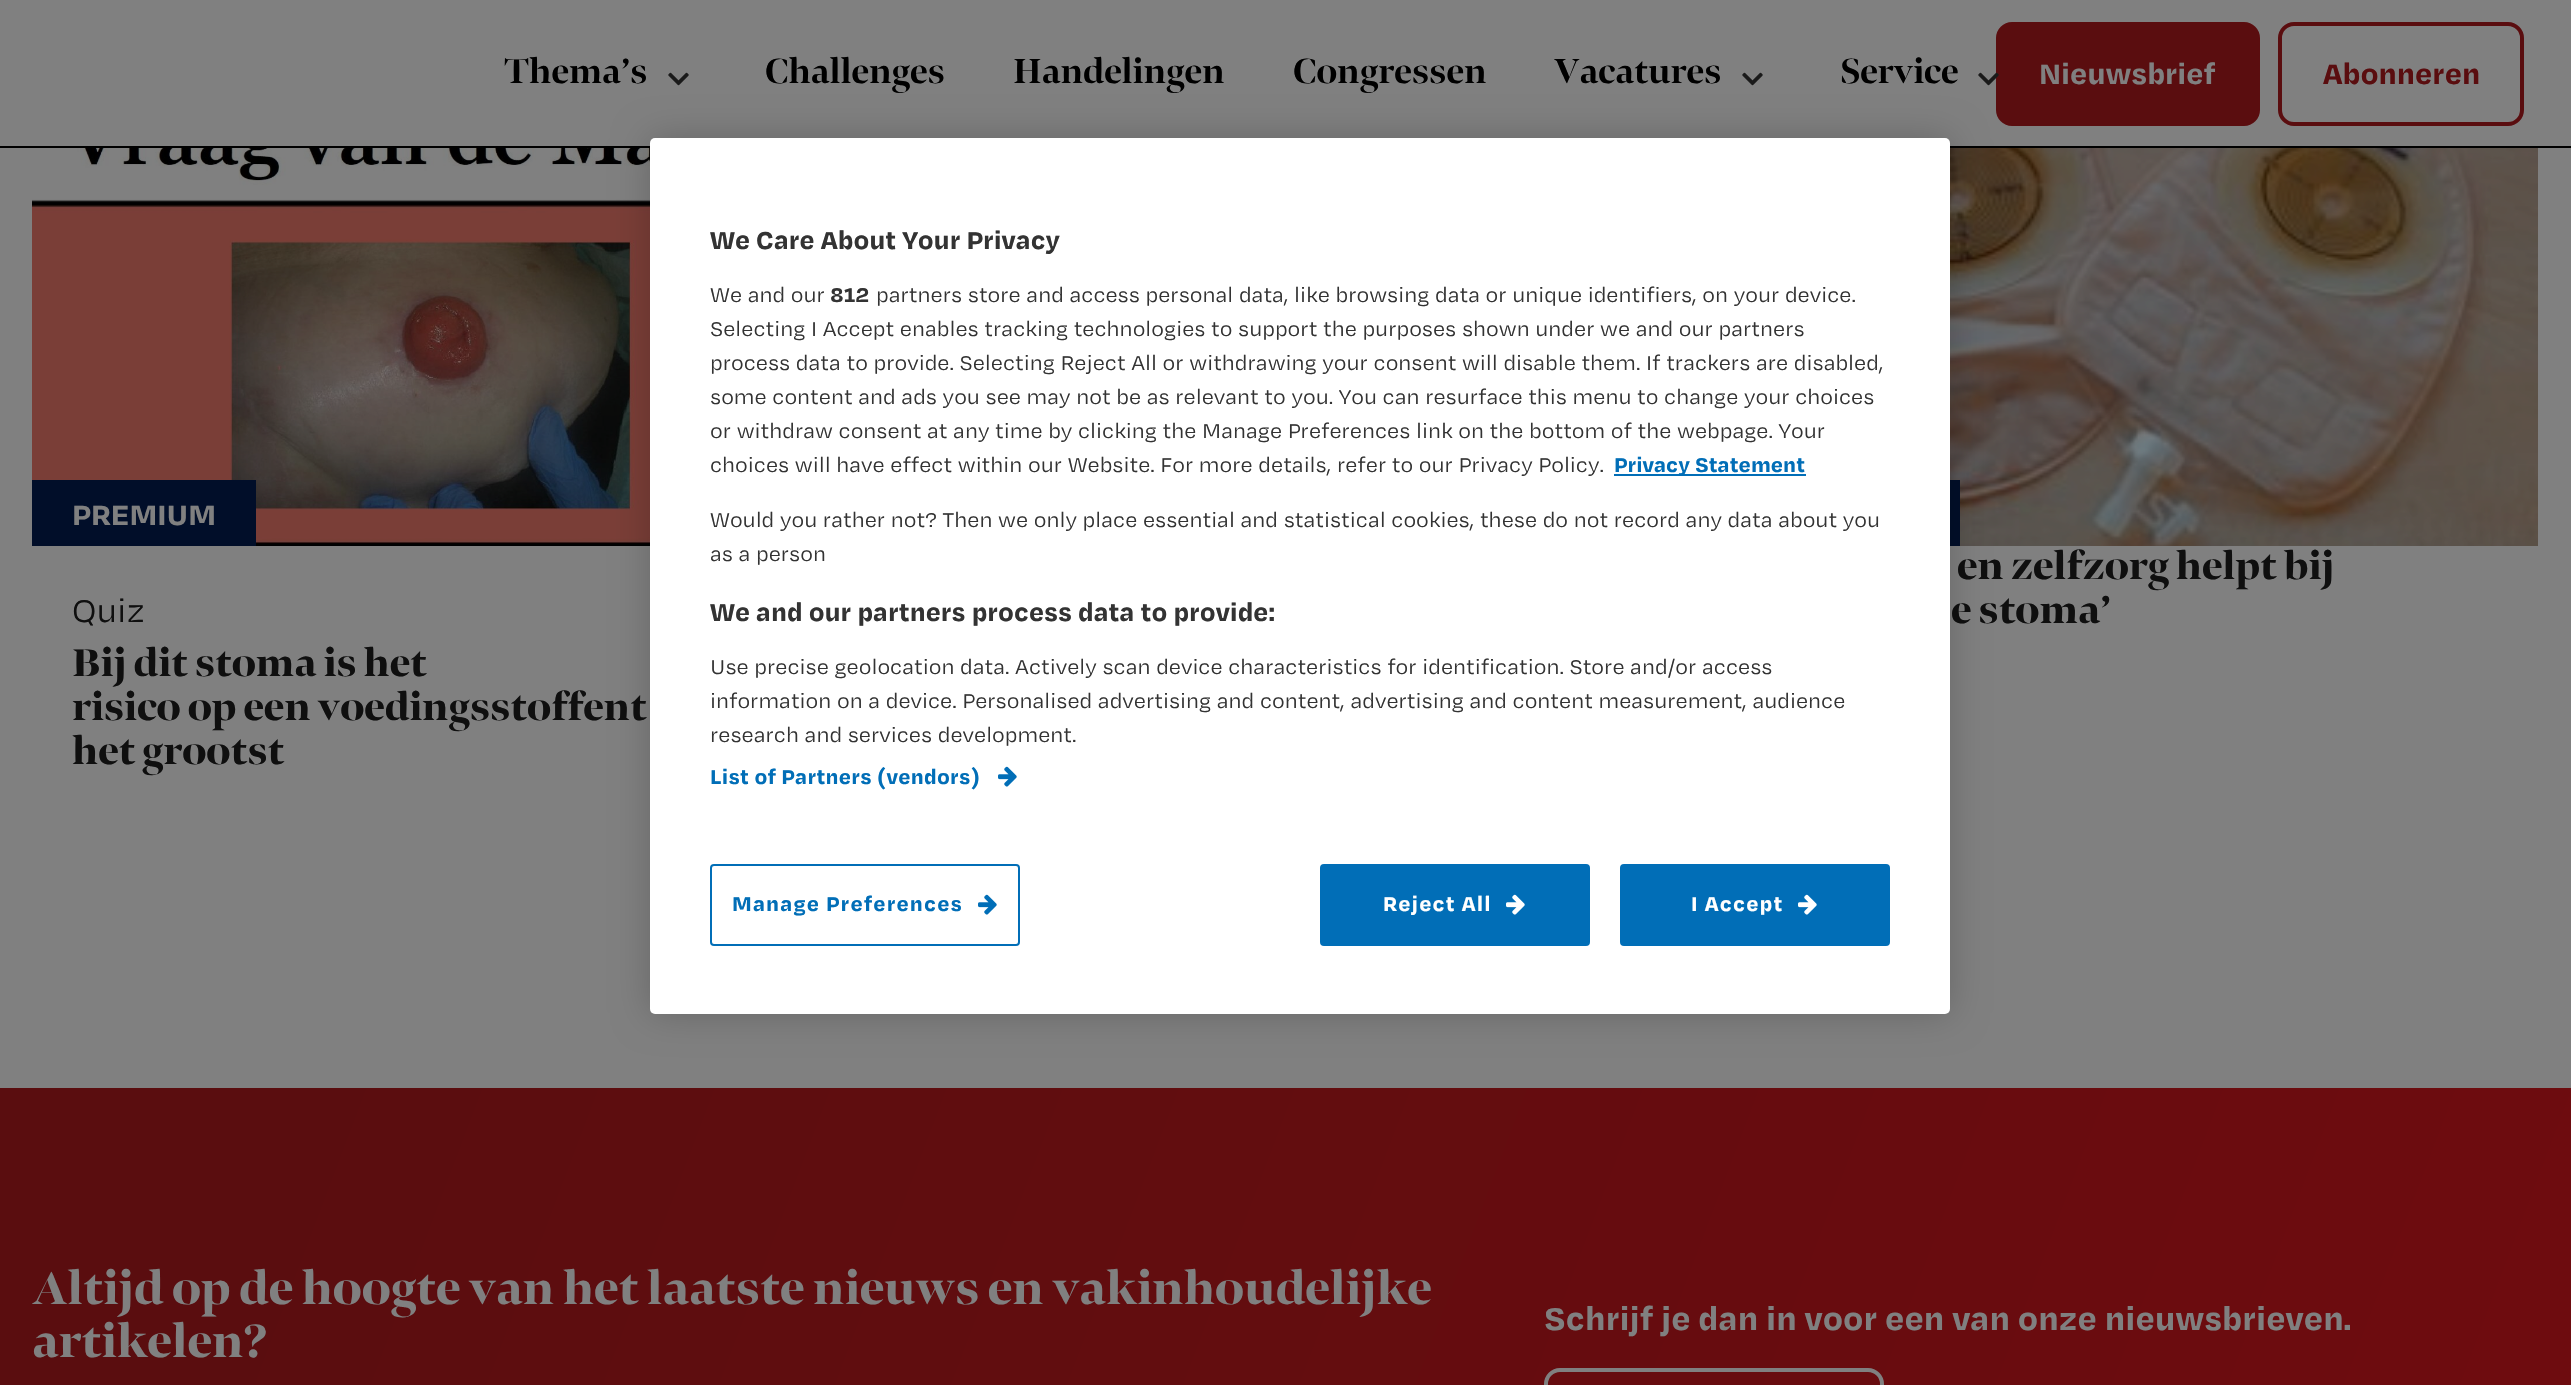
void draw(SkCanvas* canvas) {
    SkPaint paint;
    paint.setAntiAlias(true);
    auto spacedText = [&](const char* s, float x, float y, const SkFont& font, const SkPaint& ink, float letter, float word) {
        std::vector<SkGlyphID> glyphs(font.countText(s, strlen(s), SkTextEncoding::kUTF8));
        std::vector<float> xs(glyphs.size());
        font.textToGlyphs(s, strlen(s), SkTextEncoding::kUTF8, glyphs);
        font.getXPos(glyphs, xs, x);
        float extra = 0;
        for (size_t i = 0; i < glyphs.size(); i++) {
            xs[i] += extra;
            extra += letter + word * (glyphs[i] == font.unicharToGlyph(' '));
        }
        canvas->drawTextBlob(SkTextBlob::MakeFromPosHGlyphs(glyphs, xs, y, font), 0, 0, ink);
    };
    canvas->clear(0xFF808080);
    paint.setColor(0xFF000000);
    canvas->drawRect(SkRect::MakeXYWH(0, 146, 2571, 2), paint);
    SkFont font1(fontMgr->matchFamilyStyle("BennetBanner", SkFontStyle::Bold()), 36);
    font1.setSubpixel(true);
    canvas->drawString("Thema’s", 504, 83, font1, paint);
    canvas->drawImageRect(SkImages::DeferredFromEncodedData(SkData::MakeFromFileName("img1.png")), SkRect::MakeXYWH(668, 72, 21, 14), SkSamplingOptions());
    canvas->drawString("Challenges", 765, 83, font1, paint);
    canvas->drawString("Handelingen", 1013, 83, font1, paint);
    canvas->drawString("Congressen", 1293, 83, font1, paint);
    canvas->drawString("Vacatures", 1554, 83, font1, paint);
    canvas->drawImageRect(SkImages::DeferredFromEncodedData(SkData::MakeFromFileName("img1.png")), SkRect::MakeXYWH(1742, 72, 21, 14), SkSamplingOptions());
    canvas->drawString("Service", 1840, 83, font1, paint);
    paint.setColor(0xFF5A0D0F);
    canvas->drawRoundRect(SkRect::MakeXYWH(1998, 24, 260, 100), 14, 14, paint);
    paint.setStyle(SkPaint::kStroke_Style);
    paint.setStrokeWidth(4);
    canvas->drawRoundRect(SkRect::MakeXYWH(1998, 24, 260, 100), 14, 14, paint);
    canvas->drawImageRect(SkImages::DeferredFromEncodedData(SkData::MakeFromFileName("img2.png")), SkRect::MakeXYWH(1978, 72, 21, 14), SkSamplingOptions());
    SkFont font2(fontMgr->matchFamilyStyle("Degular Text", SkFontStyle::Bold()), 32);
    font2.setSubpixel(true);
    paint.setStyle(SkPaint::kFill_Style);
    paint.setColor(0xFF808080);
    canvas->drawString("Nieuwsbrief", 2039, 84, font2, paint);
    paint.setStyle(SkPaint::kStroke_Style);
    paint.setColor(0xFF5A0D0F);
    canvas->drawRoundRect(SkRect::MakeXYWH(2280, 24, 242, 100), 14, 14, paint);
    paint.setStyle(SkPaint::kFill_Style);
    canvas->drawString("Abonneren", 2323, 84, font2, paint);
    canvas->drawImageRect(SkImages::DeferredFromEncodedData(SkData::MakeFromFileName("img3.png")), SkRect::MakeXYWH(32, 148, 618, 398), SkSamplingOptions());
    paint.setColor(0xFF010E29);
    canvas->drawRect(SkRect::MakeXYWH(32, 480, 224, 66), paint);
    paint.setColor(0xFF808080);
    canvas->drawString("PREMIUM", 72, 525, font2, paint);
    SkFont font3(fontMgr->matchFamilyStyle("Degular Text", SkFontStyle::Normal()), 36);
    font3.setSubpixel(true);
    paint.setColor(0xFF0F0F0F);
    canvas->drawString("Quiz", 72, 622, font3, paint);
    SkFont font4(fontMgr->matchFamilyStyle("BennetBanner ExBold", SkFontStyle(800, SkFontStyle::kNormal_Width, SkFontStyle::kUpright_Slant)), 40);
    font4.setSubpixel(true);
    canvas->drawString("Bij dit stoma is het", 72, 676, font4, paint);
    canvas->drawString("risico op een voedingsstoffent", 72, 720, font4, paint);
    canvas->drawString("het grootst", 72, 764, font4, paint);
    canvas->drawImageRect(SkImages::DeferredFromEncodedData(SkData::MakeFromFileName("img4.png")), SkRect::MakeXYWH(1950, 148, 588, 398), SkSamplingOptions());
    paint.setColor(0xFF010E29);
    canvas->drawRect(SkRect::MakeXYWH(1950, 480, 10, 66), paint);
    paint.setColor(0xFF0F0F0F);
    canvas->drawString("en zelfzorg helpt bij", 1957, 579, font4, paint);
    canvas->drawString("e stoma’", 1951, 623, font4, paint);
    {
        const SkColor colors[] = {0xFF6F0C0F, 0xFF5A0D0F};
        const float stops[] = {0.02f, 0.89f};
        const SkPoint ends[] = {{2512, 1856}, {60, 930}};
        paint.setShader(SkGradientShader::MakeLinear(ends, colors, stops, 2, SkTileMode::kClamp));
        paint.setAlpha(255);
    }
    canvas->drawRect(SkRect::MakeXYWH(0, 1088, 2571, 297), paint);
    SkFont font5(fontMgr->matchFamilyStyle("BennetBanner ExBold", SkFontStyle(800, SkFontStyle::kNormal_Width, SkFontStyle::kUpright_Slant)), 48);
    font5.setSubpixel(true);
    paint.setShader(nullptr);
    paint.setColor(0xFF808080);
    canvas->drawString("Altijd op de hoogte van het laatste nieuws en vakinhoudelijke", 32, 1304, font5, paint);
    canvas->drawString("artikelen?", 32, 1357, font5, paint);
    SkFont font6(fontMgr->matchFamilyStyle("Degular Text", SkFontStyle::Bold()), 36);
    font6.setSubpixel(true);
    canvas->drawString("Schrijf je dan in voor een van onze nieuwsbrieven.", 1544, 1330, font6, paint);
    paint.setStyle(SkPaint::kStroke_Style);
    canvas->drawRoundRect(SkRect::MakeXYWH(1546, 1370, 336, 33), 14, 14, paint);
    paint.setStyle(SkPaint::kFill_Style);
    paint.setColor(0x33000000);
    paint.setMaskFilter(SkMaskFilter::MakeBlur(kNormal_SkBlurStyle, 18));
    canvas->drawRoundRect(SkRect::MakeXYWH(650, 138, 1300, 876), 5, 5, paint);
    paint.setMaskFilter(nullptr);
    paint.setColor(0xFFFFFFFF);
    canvas->drawRoundRect(SkRect::MakeXYWH(650, 138, 1300, 876), 5, 5, paint);
    SkFont font7(fontMgr->matchFamilyStyle("Degular Text", SkFontStyle::Bold()), 28);
    font7.setSubpixel(true);
    paint.setColor(0xFF333333);
    canvas->drawString("We Care About Your Privacy", 710, 249, font7, paint);
    SkFont font8(fontMgr->matchFamilyStyle("Degular Text", SkFontStyle::Normal()), 22.75f);
    font8.setSubpixel(true);
    canvas->drawString("We and our", 710, 302, font8, paint);
    SkFont font9(fontMgr->matchFamilyStyle("Degular Text", SkFontStyle::Bold()), 22.75f);
    font9.setSubpixel(true);
    canvas->drawString("812", 830, 302, font9, paint);
    canvas->drawString("partners store and access personal data, like browsing data or unique identifiers, on your device.", 876, 302, font8, paint);
    canvas->drawString("Selecting I Accept enables tracking technologies to support the purposes shown under we and our partners", 710, 336, font8, paint);
    canvas->drawString("process data to provide. Selecting Reject All or withdrawing your consent will disable them. If trackers are disabled,", 710, 370, font8, paint);
    canvas->drawString("some content and ads you see may not be as relevant to you. You can resurface this menu to change your choices", 710, 404, font8, paint);
    canvas->drawString("or withdraw consent at any time by clicking the Manage Preferences link on the bottom of the webpage. Your", 710, 438, font8, paint);
    canvas->drawString("choices will have effect within our Website. For more details, refer to our Privacy Policy.", 710, 472, font8, paint);
    paint.setColor(0xFF016EB7);
    canvas->drawRect(SkRect::MakeXYWH(1614, 474, 192, 2), paint);
    canvas->drawString("Privacy Statement", 1614, 472, font9, paint);
    paint.setColor(0xFF333333);
    canvas->drawString("Would you rather not? Then we only place essential and statistical cookies, these do not record any data about you", 710, 527, font8, paint);
    canvas->drawString("as a person", 710, 561, font8, paint);
    canvas->drawString("We and our partners process data to provide:", 710, 621, font7, paint);
    canvas->drawString("Use precise geolocation data. Actively scan device characteristics for identification. Store and/or access", 710, 674, font8, paint);
    canvas->drawString("information on a device. Personalised advertising and content, advertising and content measurement, audience", 710, 708, font8, paint);
    canvas->drawString("research and services development.", 710, 742, font8, paint);
    paint.setColor(0xFF016EB7);
    spacedText("List of Partners (vendors)", 710, 784, font9, paint, 0.25f, 0);
    canvas->drawImageRect(SkImages::DeferredFromEncodedData(SkData::MakeFromFileName("img5.png")), SkRect::MakeXYWH(998, 766, 19, 21), SkSamplingOptions());
    paint.setStyle(SkPaint::kStroke_Style);
    paint.setStrokeWidth(2);
    canvas->drawRoundRect(SkRect::MakeXYWH(711, 865, 308, 80), 3, 3, paint);
    paint.setStyle(SkPaint::kFill_Style);
    spacedText("Manage Preferences", 732, 911, font9, paint, 1.1f, 0);
    canvas->drawImageRect(SkImages::DeferredFromEncodedData(SkData::MakeFromFileName("img5.png")), SkRect::MakeXYWH(978, 894, 19, 21), SkSamplingOptions());
    canvas->drawRoundRect(SkRect::MakeXYWH(1321, 865, 268, 80), 3, 3, paint);
    paint.setStyle(SkPaint::kStroke_Style);
    canvas->drawRoundRect(SkRect::MakeXYWH(1321, 865, 268, 80), 3, 3, paint);
    paint.setStyle(SkPaint::kFill_Style);
    paint.setColor(0xFFFFFFFF);
    spacedText("Reject All", 1383, 911, font9, paint, 1.1f, 0);
    canvas->drawImageRect(SkImages::DeferredFromEncodedData(SkData::MakeFromFileName("img6.png")), SkRect::MakeXYWH(1506, 894, 19, 21), SkSamplingOptions());
    paint.setColor(0xFF016EB7);
    canvas->drawRoundRect(SkRect::MakeXYWH(1621, 865, 268, 80), 3, 3, paint);
    paint.setStyle(SkPaint::kStroke_Style);
    canvas->drawRoundRect(SkRect::MakeXYWH(1621, 865, 268, 80), 3, 3, paint);
    paint.setStyle(SkPaint::kFill_Style);
    paint.setColor(0xFFFFFFFF);
    spacedText("I Accept", 1691, 911, font9, paint, 1.1f, 0);
    canvas->drawImageRect(SkImages::DeferredFromEncodedData(SkData::MakeFromFileName("img6.png")), SkRect::MakeXYWH(1798, 894, 19, 21), SkSamplingOptions());
}
